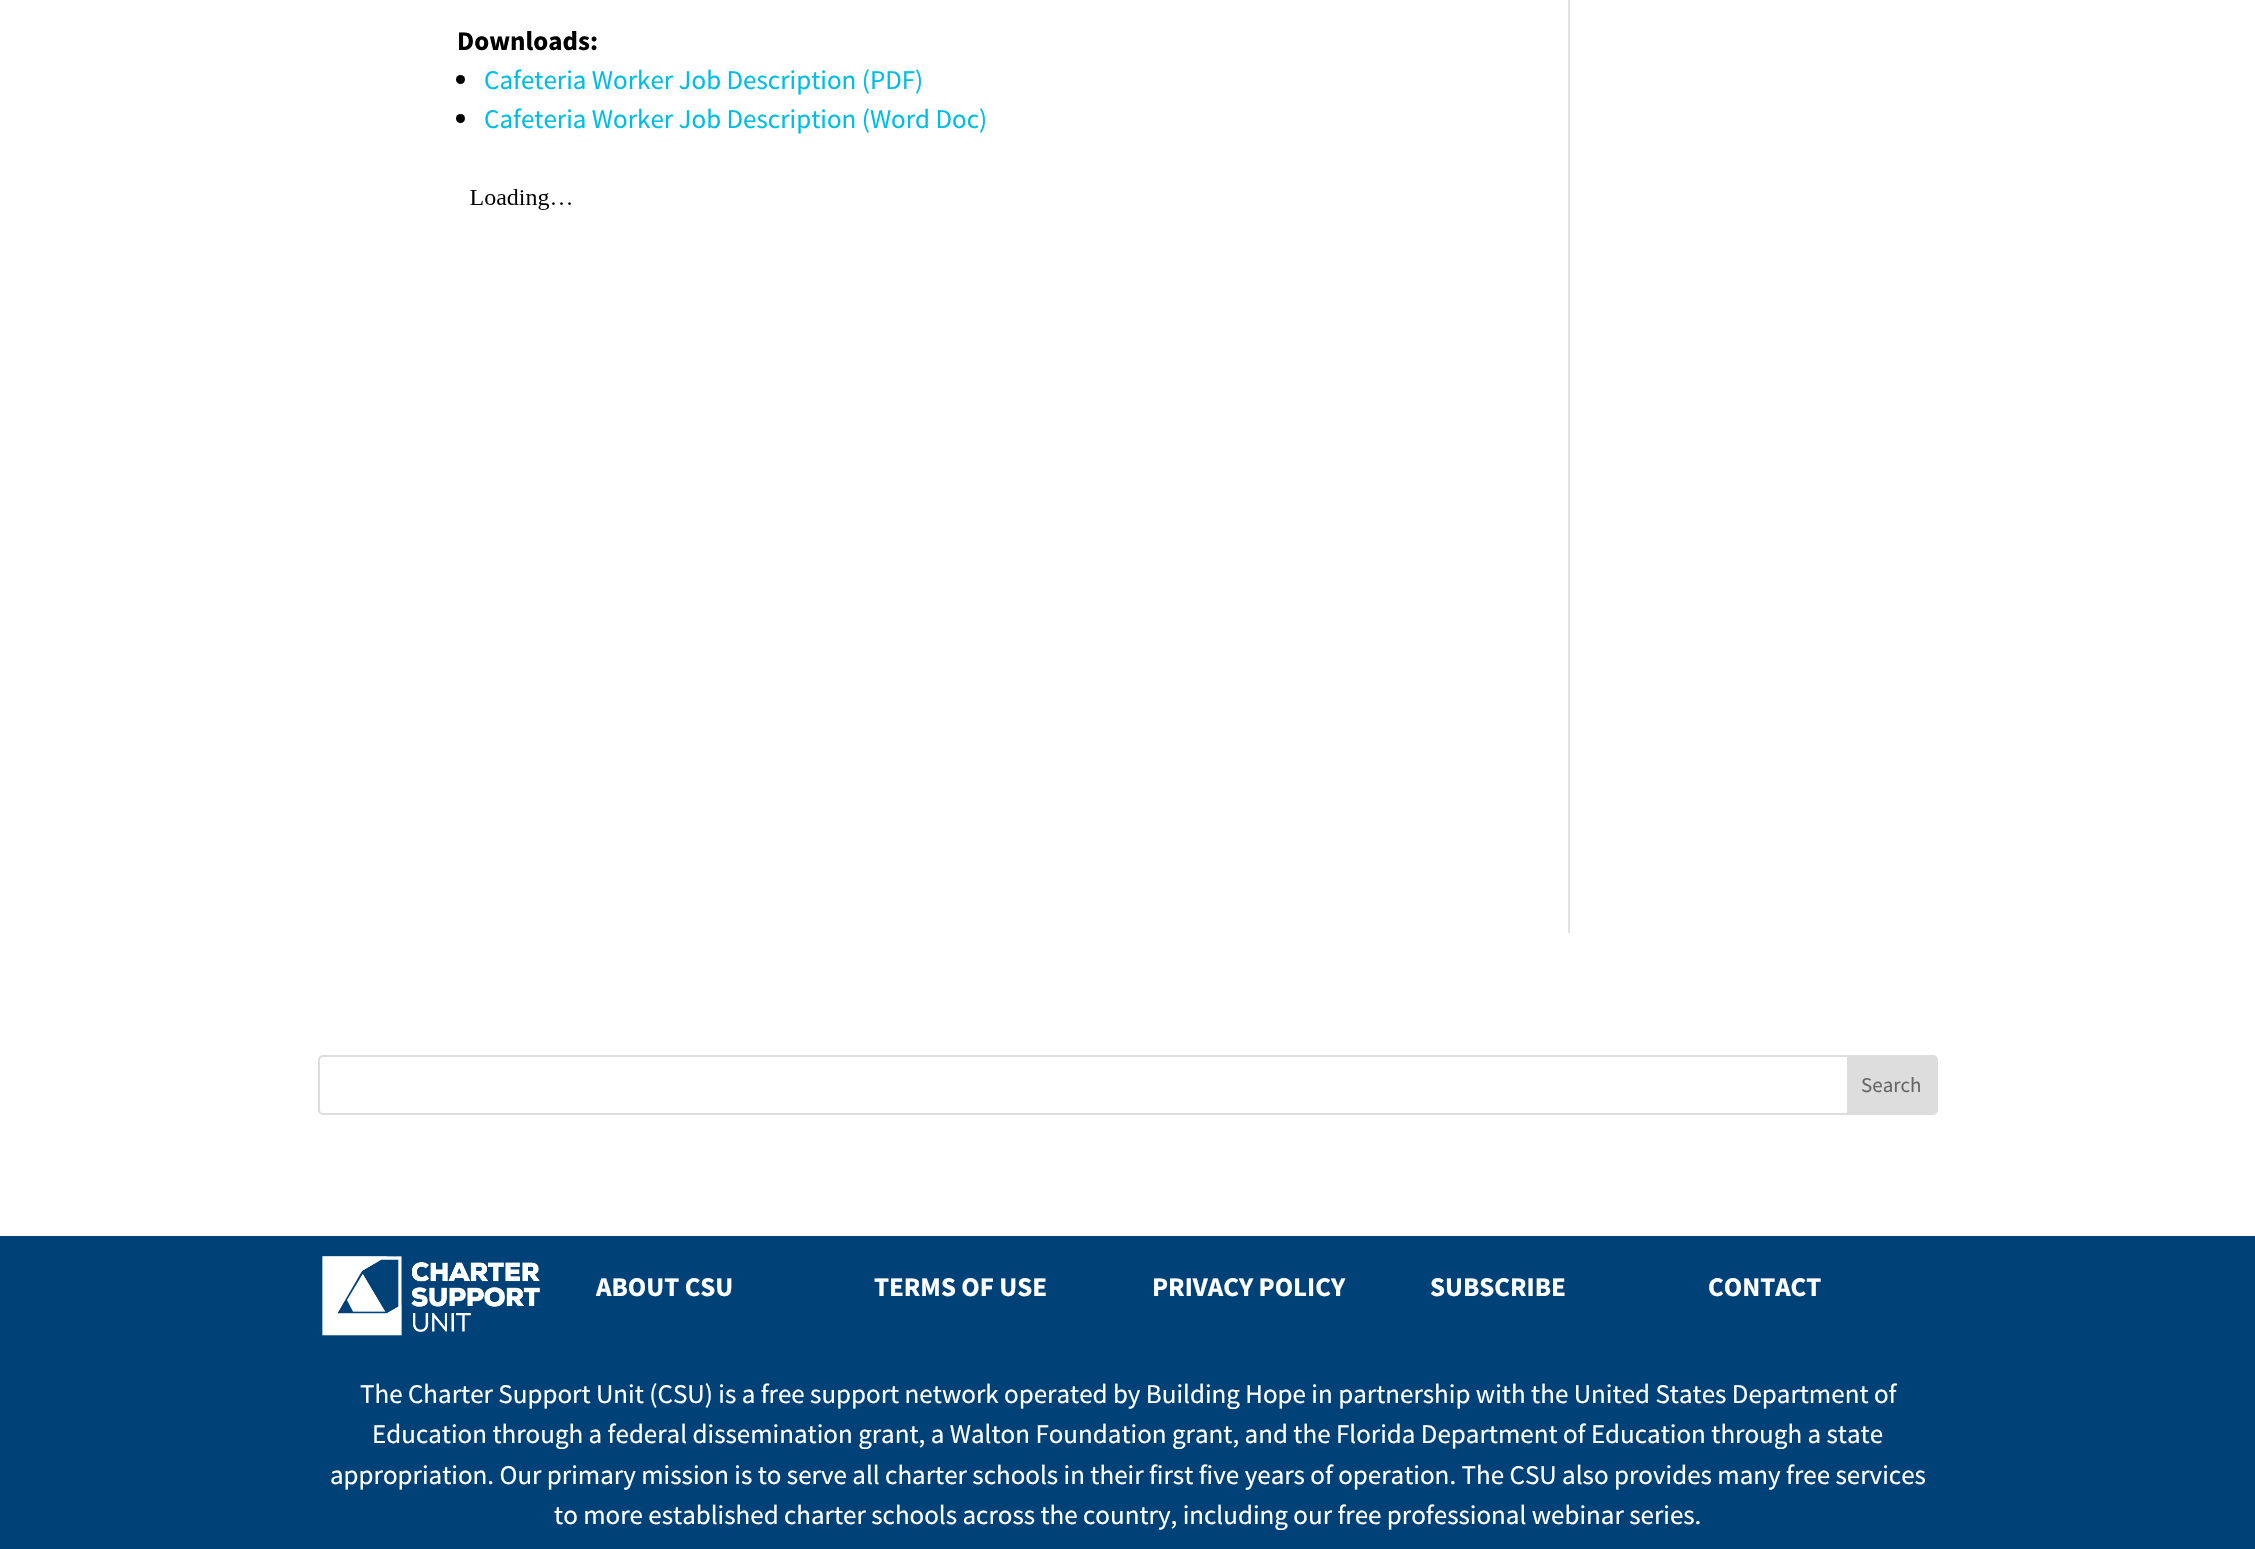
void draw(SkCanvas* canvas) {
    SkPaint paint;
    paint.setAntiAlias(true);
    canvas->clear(0xFFFFFFFF);
    SkFont font1(fontMgr->matchFamilyStyle("Source Sans Pro", SkFontStyle::Bold()), 27);
    font1.setSubpixel(true);
    paint.setColor(0xFF000000);
    canvas->drawString("Downloads:", 457, 50, font1, paint);
    canvas->drawCircle(460.5f, 79.5f, 4.5f, paint);
    SkFont font2(fontMgr->matchFamilyStyle("Source Sans Pro", SkFontStyle::Normal()), 27);
    font2.setSubpixel(true);
    paint.setColor(0xFF00BEE1);
    canvas->drawString("Cafeteria Worker Job Description (PDF)", 484, 89, font2, paint);
    paint.setColor(0xFF000000);
    canvas->drawCircle(460.5f, 118.5f, 4.5f, paint);
    paint.setColor(0xFF00BEE1);
    canvas->drawString("Cafeteria Worker Job Description (Word Doc)", 484, 128, font2, paint);
    canvas->drawImageRect(SkImages::DeferredFromEncodedData(SkData::MakeFromFileName("img1.png")), SkRect::MakeXYWH(470, 189, 101, 21), SkSamplingOptions());
    paint.setColor(0xFFE2E2E2);
    canvas->drawRect(SkRect::MakeXYWH(1568, 0, 2, 933), paint);
    paint.setStyle(SkPaint::kStroke_Style);
    paint.setStrokeWidth(2);
    paint.setColor(0xFFDDDDDD);
    canvas->drawRoundRect(SkRect::MakeXYWH(319, 1056, 1618, 58), 4, 4, paint);
    paint.setStyle(SkPaint::kFill_Style);
    canvas->drawPath(SkPathBuilder().moveTo(1847, 1056).lineTo(1934, 1056).cubicTo(1935.5f, 1056, 1937, 1057.5f, 1937, 1059).lineTo(1937, 1110).cubicTo(1937, 1111.5f, 1935.5f, 1113, 1934, 1113).lineTo(1847, 1113).close().detach(), paint);
    SkFont font3(fontMgr->matchFamilyStyle("Source Sans Pro", SkFontStyle::Normal()), 21);
    font3.setSubpixel(true);
    paint.setColor(0xFF666666);
    canvas->drawString("Search", 1861, 1092, font3, paint);
    paint.setColor(0xFF004178);
    canvas->drawRect(SkRect::MakeXYWH(0, 1236, 2255, 313), paint);
    canvas->drawImageRect(SkImages::DeferredFromEncodedData(SkData::MakeFromFileName("img2.png")), SkRect::MakeXYWH(322, 1256, 218, 80), SkSamplingOptions());
    paint.setColor(0xFFFFFFFF);
    canvas->drawString("ABOUT CSU", 596, 1296, font1, paint);
    canvas->drawString("TERMS OF USE", 874, 1296, font1, paint);
    canvas->drawString("PRIVACY POLICY", 1152, 1296, font1, paint);
    canvas->drawString("SUBSCRIBE", 1430, 1296, font1, paint);
    canvas->drawString("CONTACT", 1708, 1296, font1, paint);
    canvas->drawString("The Charter Support Unit (CSU) is a free support network operated by Building Hope in partnership with the United States Department of", 360, 1403, font2, paint);
    canvas->drawString("Education through a federal dissemination grant, a Walton Foundation grant, and the Florida Department of Education through a state", 372, 1443, font2, paint);
    canvas->drawString("appropriation. Our primary mission is to serve all charter schools in their first five years of operation. The CSU also provides many free services", 330, 1484, font2, paint);
    canvas->drawString("to more established charter schools across the country, including our free professional webinar series.", 554, 1524, font2, paint);
}
